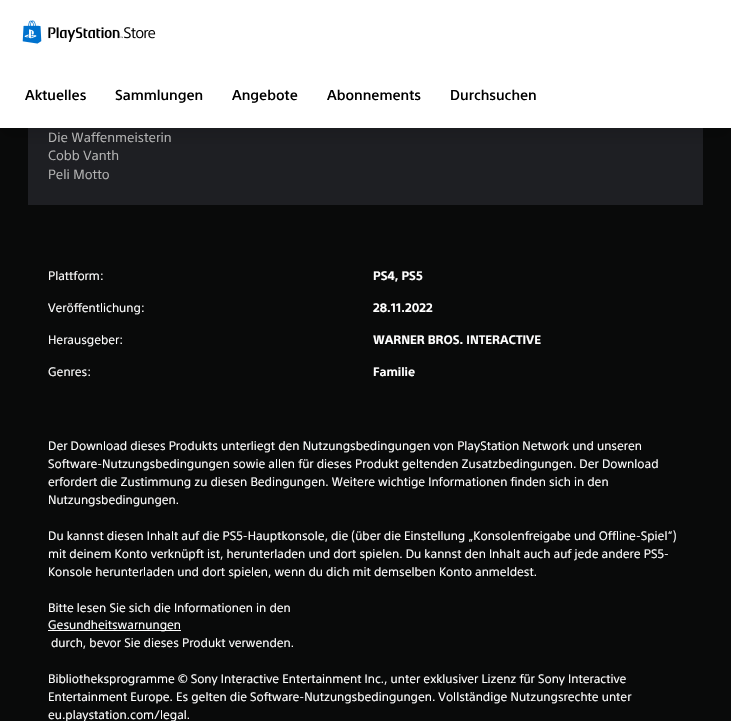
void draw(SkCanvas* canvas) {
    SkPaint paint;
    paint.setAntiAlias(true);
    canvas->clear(0xFF090A0A);
    paint.setColor(0xFFFFFFFF);
    canvas->drawRect(SkRect::MakeXYWH(0, 0, 731, 128), paint);
    paint.setColor(0xFF1E1F23);
    canvas->drawRect(SkRect::MakeXYWH(28, 128, 675, 77), paint);
    canvas->save();
    canvas->clipRect(SkRect::MakeXYWH(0, 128, 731, 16));
    paint.setColor(0x1F000000);
    paint.setMaskFilter(SkMaskFilter::MakeBlur(kNormal_SkBlurStyle, 8));
    canvas->drawRect(SkRect::MakeXYWH(0, 8, 731, 128), paint);
    paint.setMaskFilter(nullptr);
    canvas->restore();
    canvas->drawImageRect(SkImages::DeferredFromEncodedData(SkData::MakeFromFileName("img1.png")), SkRect::MakeXYWH(22, 20, 20, 24), SkSamplingOptions());
    canvas->drawImageRect(SkImages::DeferredFromEncodedData(SkData::MakeFromFileName("img2.png")), SkRect::MakeXYWH(48, 27, 108, 15), SkSamplingOptions());
    SkFont font1(fontMgr->matchFamilyStyle("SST", SkFontStyle(500, SkFontStyle::kNormal_Width, SkFontStyle::kUpright_Slant)), 14);
    font1.setSubpixel(true);
    paint.setColor(0xFF000000);
    canvas->drawString("Aktuelles", 25, 100, font1, paint);
    canvas->drawString("Sammlungen", 115, 100, font1, paint);
    canvas->drawString("Angebote", 232, 100, font1, paint);
    canvas->drawString("Abonnements", 327, 100, font1, paint);
    canvas->drawString("Durchsuchen", 450, 100, font1, paint);
    SkFont font2(fontMgr->matchFamilyStyle("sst", SkFontStyle::Normal()), 13.1f);
    font2.setSubpixel(true);
    paint.setColor(0xFFB2B2B2);
    canvas->drawString("Die Waffenmeisterin", 48, 142, font2, paint);
    canvas->drawString("Cobb Vanth", 48, 160, font2, paint);
    canvas->drawString("Peli Motto", 48, 179, font2, paint);
    SkFont font3(fontMgr->matchFamilyStyle("sst", SkFontStyle::Normal()), 12);
    font3.setSubpixel(true);
    paint.setColor(0xFFFFFFFF);
    canvas->drawString("Plattform:", 48, 280, font3, paint);
    SkFont font4(fontMgr->matchFamilyStyle("sst", SkFontStyle::Bold()), 12);
    font4.setSubpixel(true);
    canvas->drawString("PS4, PS5", 373, 280, font4, paint);
    canvas->drawString("Veröffentlichung:", 48, 312, font3, paint);
    canvas->drawString("28.11.2022", 373, 312, font4, paint);
    canvas->drawString("Herausgeber:", 48, 344, font3, paint);
    canvas->drawString("WARNER BROS. INTERACTIVE", 373, 344, font4, paint);
    canvas->drawString("Genres:", 48, 376, font3, paint);
    canvas->drawString("Familie", 373, 376, font4, paint);
    canvas->drawString("Der Download dieses Produkts unterliegt den Nutzungsbedingungen von PlayStation Network und unseren", 48, 450, font3, paint);
    canvas->drawString("Software-Nutzungsbedingungen sowie allen für dieses Produkt geltenden Zusatzbedingungen. Der Download", 48, 468, font3, paint);
    canvas->drawString("erfordert die Zustimmung zu diesen Bedingungen. Weitere wichtige Informationen finden sich in den", 48, 486, font3, paint);
    canvas->drawString("Nutzungsbedingungen.", 48, 504, font3, paint);
    canvas->drawString("Du kannst diesen Inhalt auf die PS5-Hauptkonsole, die (über die Einstellung „Konsolenfreigabe und Offline-Spiel“)", 48, 540, font3, paint);
    canvas->drawString("mit deinem Konto verknüpft ist, herunterladen und dort spielen. Du kannst den Inhalt auch auf jede andere PS5-", 48, 558, font3, paint);
    canvas->drawString("Konsole herunterladen und dort spielen, wenn du dich mit demselben Konto anmeldest.", 48, 576, font3, paint);
    canvas->drawString("Bitte lesen Sie sich die Informationen in den", 48, 612, font3, paint);
    canvas->drawRect(SkRect::MakeXYWH(48, 630, 133, 1), paint);
    canvas->drawString("Gesundheitswarnungen", 48, 629, font3, paint);
    canvas->drawString("durch, bevor Sie dieses Produkt verwenden.", 51, 647, font3, paint);
    canvas->drawString("Bibliotheksprogramme © Sony Interactive Entertainment Inc., unter exklusiver Lizenz für Sony Interactive", 48, 683, font3, paint);
    canvas->drawString("Entertainment Europe. Es gelten die Software-Nutzungsbedingungen. Vollständige Nutzungsrechte unter", 48, 701, font3, paint);
    canvas->drawString("eu.playstation.com/legal.", 48, 719, font3, paint);
}
